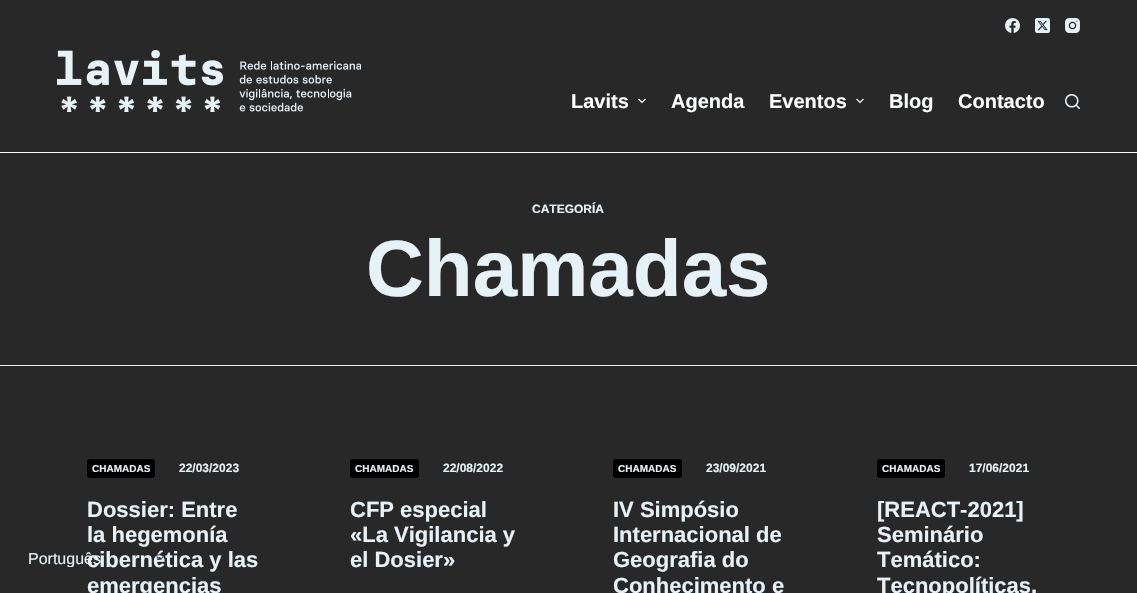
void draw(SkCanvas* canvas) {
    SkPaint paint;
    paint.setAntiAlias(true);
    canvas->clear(0xFF282828);
    SkFont font1(fontMgr->matchFamilyStyle("Liberation Sans", SkFontStyle::Bold()), 22);
    font1.setSubpixel(true);
    paint.setColor(0xFFE6F1F8);
    canvas->drawString("cibernética y las", 87, 567, font1, paint);
    canvas->drawImageRect(SkImages::DeferredFromEncodedData(SkData::MakeFromFileName("img1.png")), SkRect::MakeXYWH(156, 556, 8, 4), SkSamplingOptions());
    canvas->save();
    canvas->clipRect(SkRect::MakeXYWH(28, 550, 121, 17));
    SkFont font2(fontMgr->matchFamilyStyle("Liberation Sans", SkFontStyle::Normal()), 16);
    font2.setSubpixel(true);
    canvas->drawString("Português", 28, 564, font2, paint);
    canvas->restore();
    canvas->drawImageRect(SkImages::DeferredFromEncodedData(SkData::MakeFromFileName("img2.png")), SkRect::MakeXYWH(1005, 18, 15, 15), SkSamplingOptions());
    canvas->drawImageRect(SkImages::DeferredFromEncodedData(SkData::MakeFromFileName("img3.png")), SkRect::MakeXYWH(1035, 18, 15, 15), SkSamplingOptions());
    canvas->drawImageRect(SkImages::DeferredFromEncodedData(SkData::MakeFromFileName("img4.png")), SkRect::MakeXYWH(1065, 18, 15, 15), SkSamplingOptions());
    paint.setColor(0xFFFCFDFF);
    canvas->drawRect(SkRect::MakeXYWH(0, 152, 1137, 1), paint);
    canvas->drawImageRect(SkImages::DeferredFromEncodedData(SkData::MakeFromFileName("img5.png")), SkRect::MakeXYWH(57, 50, 304, 62), SkSamplingOptions());
    SkFont font3(fontMgr->matchFamilyStyle("Liberation Sans", SkFontStyle::Bold()), 20);
    font3.setSubpixel(true);
    canvas->drawString("Lavits", 571, 108, font3, paint);
    canvas->drawImageRect(SkImages::DeferredFromEncodedData(SkData::MakeFromFileName("img6.png")), SkRect::MakeXYWH(638, 98, 8, 6), SkSamplingOptions());
    canvas->drawString("Agenda", 671, 108, font3, paint);
    canvas->drawString("Eventos", 769, 108, font3, paint);
    canvas->drawImageRect(SkImages::DeferredFromEncodedData(SkData::MakeFromFileName("img6.png")), SkRect::MakeXYWH(856, 98, 8, 6), SkSamplingOptions());
    canvas->drawString("Blog", 889, 108, font3, paint);
    canvas->drawString("Contacto", 958, 108, font3, paint);
    canvas->drawImageRect(SkImages::DeferredFromEncodedData(SkData::MakeFromFileName("img7.png")), SkRect::MakeXYWH(1065, 94, 15, 15), SkSamplingOptions());
    paint.setColor(0xFFE6F1F8);
    canvas->drawRect(SkRect::MakeXYWH(0, 365, 1137, 1), paint);
    SkFont font4(fontMgr->matchFamilyStyle("Liberation Sans", SkFontStyle::Bold()), 12);
    font4.setSubpixel(true);
    canvas->drawString("CATEGORÍA", 532, 213, font4, paint);
    SkFont font5(fontMgr->matchFamilyStyle("Liberation Sans", SkFontStyle::Bold()), 80);
    font5.setSubpixel(true);
    canvas->drawString("Chamadas", 366, 296, font5, paint);
    paint.setColor(0xFF000000);
    canvas->drawRoundRect(SkRect::MakeXYWH(87, 459, 68, 19), 3, 3, paint);
    SkFont font6(fontMgr->matchFamilyStyle("Liberation Sans", SkFontStyle::Bold()), 10);
    font6.setSubpixel(true);
    paint.setColor(0xFFE6F1F8);
    canvas->drawString("CHAMADAS", 92, 472, font6, paint);
    canvas->drawString("22/03/2023", 179, 472, font4, paint);
    canvas->drawString("Dossier: Entre", 87, 517, font1, paint);
    canvas->drawString("la hegemonía", 87, 542, font1, paint);
    canvas->drawString("emergencias", 87, 593, font1, paint);
    paint.setColor(0xFF000000);
    canvas->drawRoundRect(SkRect::MakeXYWH(350, 459, 69, 19), 3, 3, paint);
    paint.setColor(0xFFE6F1F8);
    canvas->drawString("CHAMADAS", 355, 472, font6, paint);
    canvas->drawString("22/08/2022", 443, 472, font4, paint);
    canvas->drawString("CFP especial", 350, 517, font1, paint);
    canvas->drawString("«La Vigilancia y", 350, 542, font1, paint);
    canvas->drawString("el Dosier»", 350, 567, font1, paint);
    paint.setColor(0xFF000000);
    canvas->drawRoundRect(SkRect::MakeXYWH(613, 459, 69, 19), 3, 3, paint);
    paint.setColor(0xFFE6F1F8);
    canvas->drawString("CHAMADAS", 618, 472, font6, paint);
    canvas->drawString("23/09/2021", 706, 472, font4, paint);
    canvas->drawString("IV Simpósio", 613, 517, font1, paint);
    canvas->drawString("Internacional de", 613, 542, font1, paint);
    canvas->drawString("Geografia do", 613, 567, font1, paint);
    canvas->drawString("Conhecimento e", 613, 593, font1, paint);
    paint.setColor(0xFF000000);
    canvas->drawRoundRect(SkRect::MakeXYWH(877, 459, 68, 19), 3, 3, paint);
    paint.setColor(0xFFE6F1F8);
    canvas->drawString("CHAMADAS", 882, 472, font6, paint);
    canvas->drawString("17/06/2021", 969, 472, font4, paint);
    canvas->drawString("[REACT-2021]", 877, 517, font1, paint);
    canvas->drawString("Seminário", 877, 542, font1, paint);
    canvas->drawString("Temático:", 877, 567, font1, paint);
    canvas->drawString("Tecnopolíticas,", 877, 593, font1, paint);
}
